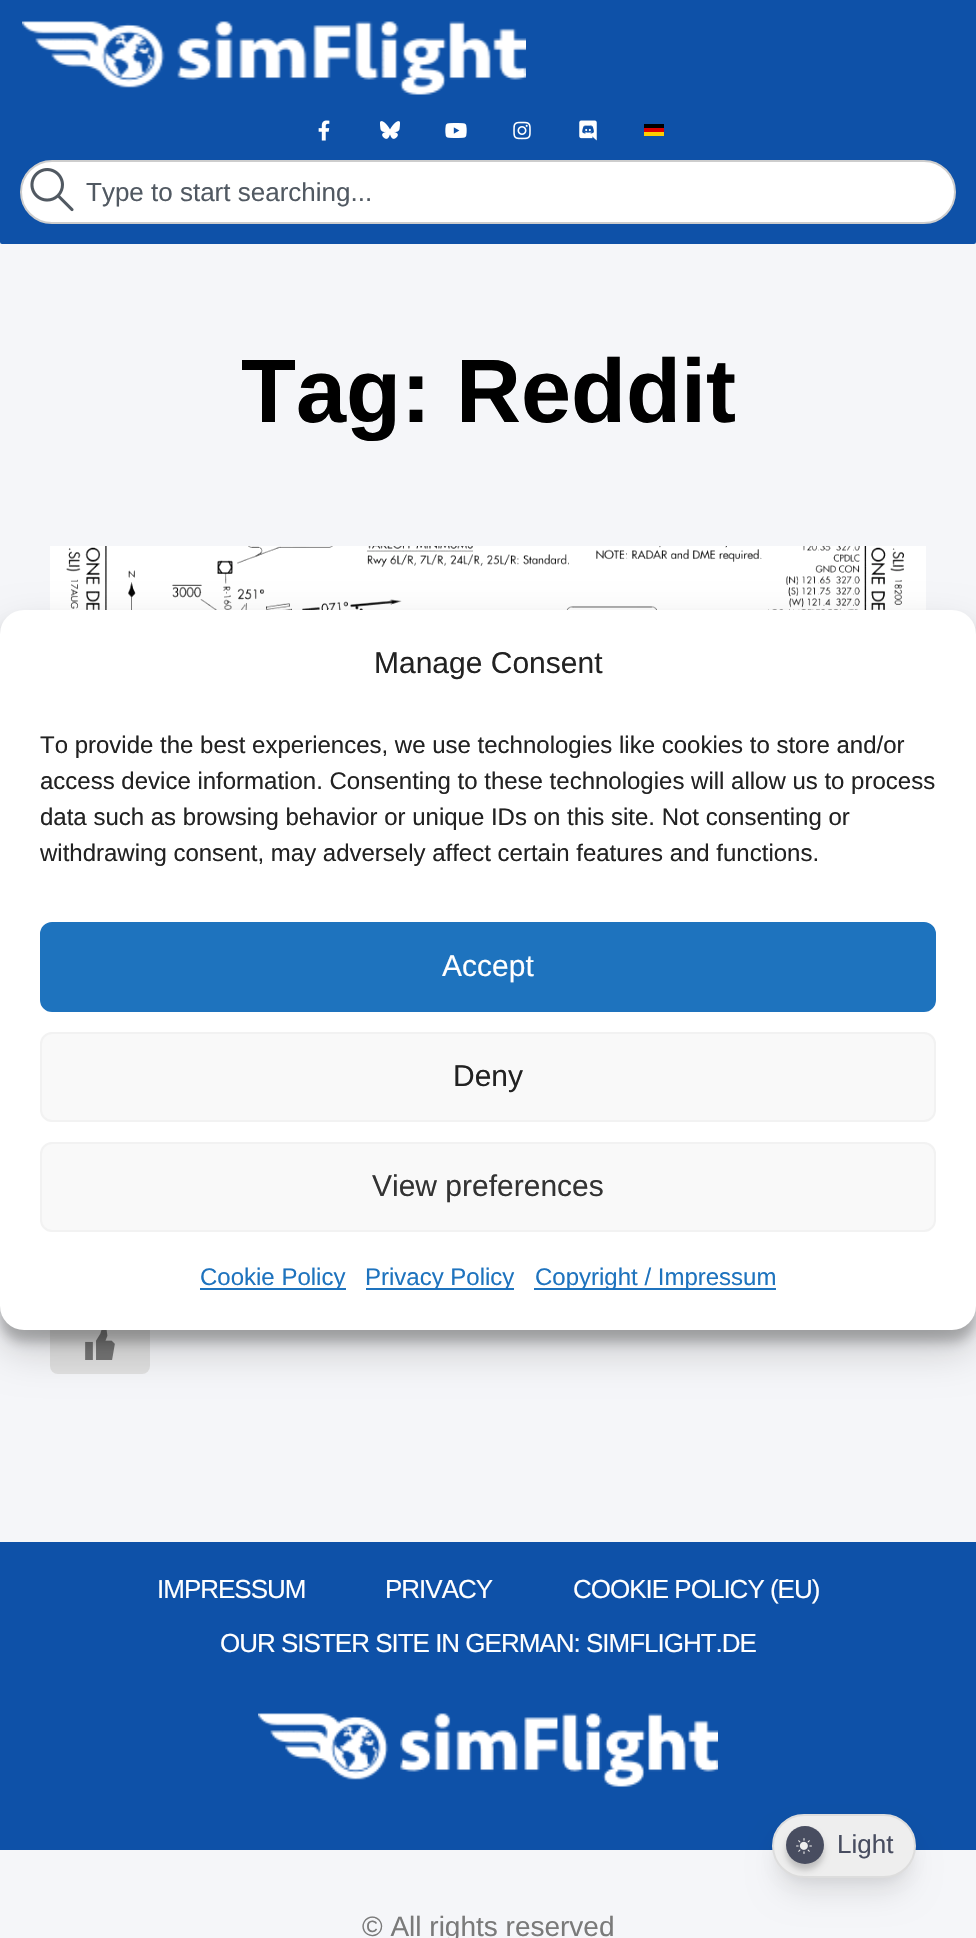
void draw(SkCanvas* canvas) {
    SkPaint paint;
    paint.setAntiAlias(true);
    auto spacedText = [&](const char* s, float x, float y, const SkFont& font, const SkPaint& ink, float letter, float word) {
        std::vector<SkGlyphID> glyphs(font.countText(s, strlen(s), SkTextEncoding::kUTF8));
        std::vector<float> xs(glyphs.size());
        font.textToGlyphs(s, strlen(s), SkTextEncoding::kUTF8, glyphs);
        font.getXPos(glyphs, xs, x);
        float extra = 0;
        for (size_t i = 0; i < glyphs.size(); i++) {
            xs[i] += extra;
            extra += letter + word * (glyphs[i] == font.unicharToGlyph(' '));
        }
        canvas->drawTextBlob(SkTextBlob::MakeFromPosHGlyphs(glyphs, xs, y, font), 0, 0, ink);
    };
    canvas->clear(0xFFF5F6F9);
    paint.setColor(0xFF0E51A8);
    canvas->drawRoundRect(SkRect::MakeXYWH(0, -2, 976, 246), 2, 2, paint);
    canvas->drawImageRect(SkImages::DeferredFromEncodedData(SkData::MakeFromFileName("img1.png")), SkRect::MakeXYWH(22, 21, 504, 74), SkSamplingOptions());
    canvas->drawImageRect(SkImages::DeferredFromEncodedData(SkData::MakeFromFileName("img2.png")), SkRect::MakeXYWH(318, 120, 12, 21), SkSamplingOptions());
    canvas->drawImageRect(SkImages::DeferredFromEncodedData(SkData::MakeFromFileName("img3.png")), SkRect::MakeXYWH(380, 121, 20, 18), SkSamplingOptions());
    canvas->drawImageRect(SkImages::DeferredFromEncodedData(SkData::MakeFromFileName("img4.png")), SkRect::MakeXYWH(445, 123, 22, 15), SkSamplingOptions());
    canvas->drawImageRect(SkImages::DeferredFromEncodedData(SkData::MakeFromFileName("img5.png")), SkRect::MakeXYWH(513, 121, 18, 19), SkSamplingOptions());
    canvas->drawImageRect(SkImages::DeferredFromEncodedData(SkData::MakeFromFileName("img6.png")), SkRect::MakeXYWH(579, 120, 18, 21), SkSamplingOptions());
    paint.setColor(0xFF000000);
    canvas->drawRect(SkRect::MakeXYWH(644, 124, 20, 4), paint);
    paint.setColor(0xFFDD0000);
    canvas->drawRect(SkRect::MakeXYWH(644, 128, 20, 4), paint);
    paint.setColor(0xFFFFCE00);
    canvas->drawRect(SkRect::MakeXYWH(644, 132, 20, 4), paint);
    paint.setColor(0xFFFFFFFF);
    canvas->drawRoundRect(SkRect::MakeXYWH(21, 161, 934, 62), 31, 31, paint);
    paint.setStyle(SkPaint::kStroke_Style);
    paint.setStrokeWidth(2);
    paint.setColor(0xFFCDCDCD);
    canvas->drawRoundRect(SkRect::MakeXYWH(21, 161, 934, 62), 31, 31, paint);
    canvas->drawImageRect(SkImages::DeferredFromEncodedData(SkData::MakeFromFileName("img7.png")), SkRect::MakeXYWH(30, 168, 44, 44), SkSamplingOptions());
    SkFont font1(fontMgr->matchFamilyStyle("Liberation Sans", SkFontStyle::Normal()), 26);
    font1.setSubpixel(true);
    paint.setStyle(SkPaint::kFill_Style);
    paint.setColor(0xFF515962);
    canvas->drawString("Type to start searching...", 86, 201, font1, paint);
    SkFont font2(fontMgr->matchFamilyStyle("Liberation Sans", SkFontStyle::Bold()), 90);
    font2.setSubpixel(true);
    paint.setColor(0xFF000000);
    canvas->drawString("Tag: Reddit", 241, 422, font2, paint);
    canvas->drawImageRect(SkImages::DeferredFromEncodedData(SkData::MakeFromFileName("img8.png")), SkRect::MakeXYWH(50, 546, 876, 64), SkSamplingOptions());
    paint.setColor(0xFFE0E0E0);
    canvas->drawRoundRect(SkRect::MakeXYWH(50, 1314, 100, 60), 8, 8, paint);
    canvas->drawImageRect(SkImages::DeferredFromEncodedData(SkData::MakeFromFileName("img9.png")), SkRect::MakeXYWH(85, 1330, 30, 30), SkSamplingOptions());
    paint.setColor(0x3B000000);
    paint.setMaskFilter(SkMaskFilter::MakeBlur(kNormal_SkBlurStyle, 6));
    canvas->drawRoundRect(SkRect::MakeXYWH(0, 622, 976, 720), 24, 24, paint);
    paint.setMaskFilter(nullptr);
    paint.setColor(0x30000000);
    paint.setMaskFilter(SkMaskFilter::MakeBlur(kNormal_SkBlurStyle, 20));
    canvas->drawRoundRect(SkRect::MakeXYWH(0, 630, 976, 720), 24, 24, paint);
    paint.setMaskFilter(nullptr);
    paint.setColor(0xFFFFFFFF);
    canvas->drawRoundRect(SkRect::MakeXYWH(0, 610, 976, 720), 24, 24, paint);
    SkFont font3(fontMgr->matchFamilyStyle("Liberation Sans", SkFontStyle::Normal()), 30);
    font3.setSubpixel(true);
    paint.setColor(0xFF222222);
    canvas->drawString("Manage Consent", 374, 673, font3, paint);
    SkFont font4(fontMgr->matchFamilyStyle("Liberation Sans", SkFontStyle::Normal()), 24);
    font4.setSubpixel(true);
    canvas->drawString("To provide the best experiences, we use technologies like cookies to store and/or", 40, 753, font4, paint);
    canvas->drawString("access device information. Consenting to these technologies will allow us to process", 40, 789, font4, paint);
    canvas->drawString("data such as browsing behavior or unique IDs on this site. Not consenting or", 40, 825, font4, paint);
    canvas->drawString("withdrawing consent, may adversely affect certain features and functions.", 40, 861, font4, paint);
    paint.setColor(0xFF1E73BE);
    canvas->drawRoundRect(SkRect::MakeXYWH(41, 923, 894, 88), 11, 11, paint);
    paint.setStyle(SkPaint::kStroke_Style);
    canvas->drawRoundRect(SkRect::MakeXYWH(41, 923, 894, 88), 11, 11, paint);
    paint.setStyle(SkPaint::kFill_Style);
    paint.setColor(0xFFFFFFFF);
    canvas->drawString("Accept", 442, 976, font3, paint);
    paint.setColor(0xFFF9F9F9);
    canvas->drawRoundRect(SkRect::MakeXYWH(41, 1033, 894, 88), 11, 11, paint);
    paint.setStyle(SkPaint::kStroke_Style);
    paint.setColor(0xFFF2F2F2);
    canvas->drawRoundRect(SkRect::MakeXYWH(41, 1033, 894, 88), 11, 11, paint);
    paint.setStyle(SkPaint::kFill_Style);
    paint.setColor(0xFF222222);
    canvas->drawString("Deny", 453, 1086, font3, paint);
    paint.setColor(0xFFF9F9F9);
    canvas->drawRoundRect(SkRect::MakeXYWH(41, 1143, 894, 88), 11, 11, paint);
    paint.setStyle(SkPaint::kStroke_Style);
    paint.setColor(0xFFF2F2F2);
    canvas->drawRoundRect(SkRect::MakeXYWH(41, 1143, 894, 88), 11, 11, paint);
    paint.setStyle(SkPaint::kFill_Style);
    paint.setColor(0xFF333333);
    canvas->drawString("View preferences", 372, 1196, font3, paint);
    paint.setColor(0xFF1E73BE);
    canvas->drawRect(SkRect::MakeXYWH(200, 1288, 146, 2), paint);
    canvas->drawString("Cookie Policy", 200, 1285, font4, paint);
    canvas->drawRect(SkRect::MakeXYWH(366, 1288, 148, 2), paint);
    canvas->drawString("Privacy Policy", 365, 1285, font4, paint);
    canvas->drawRect(SkRect::MakeXYWH(534, 1288, 242, 2), paint);
    canvas->drawString("Copyright / Impressum", 535, 1285, font4, paint);
    paint.setColor(0xFF0E51A8);
    canvas->drawRect(SkRect::MakeXYWH(0, 1542, 976, 308), paint);
    paint.setColor(0xFFFFFFFF);
    spacedText("IMPRESSUM", 157, 1598, font1, paint, -1, 0);
    spacedText("PRIVACY", 385, 1598, font1, paint, -1, 0);
    spacedText("COOKIE POLICY (EU)", 573, 1598, font1, paint, -1, 0);
    spacedText("OUR SISTER SITE IN GERMAN: SIMFLIGHT.DE", 220, 1652, font1, paint, -1, 0);
    canvas->drawImageRect(SkImages::DeferredFromEncodedData(SkData::MakeFromFileName("img10.png")), SkRect::MakeXYWH(258, 1713, 460, 74), SkSamplingOptions());
    SkFont font5(fontMgr->matchFamilyStyle("Liberation Sans", SkFontStyle::Normal()), 28);
    font5.setSubpixel(true);
    paint.setColor(0xFF7A7A7A);
    canvas->drawString("© All rights reserved", 362, 1936, font5, paint);
    paint.setColor(0x0D000000);
    paint.setMaskFilter(SkMaskFilter::MakeBlur(kNormal_SkBlurStyle, 6));
    canvas->drawRoundRect(SkRect::MakeXYWH(776, 1826, 136, 56), 28, 28, paint);
    paint.setMaskFilter(nullptr);
    paint.setColor(0x1A000000);
    paint.setMaskFilter(SkMaskFilter::MakeBlur(kNormal_SkBlurStyle, 15));
    canvas->drawRoundRect(SkRect::MakeXYWH(778, 1840, 132, 52), 26, 26, paint);
    paint.setMaskFilter(nullptr);
    paint.setColor(0xFFEEEEEE);
    canvas->drawRoundRect(SkRect::MakeXYWH(773, 1815, 142, 62), 31, 31, paint);
    paint.setStyle(SkPaint::kStroke_Style);
    paint.setColor(0xFFDDDDDD);
    canvas->drawRoundRect(SkRect::MakeXYWH(773, 1815, 142, 62), 31, 31, paint);
    paint.setStyle(SkPaint::kFill_Style);
    paint.setColor(0x33000000);
    paint.setMaskFilter(SkMaskFilter::MakeBlur(kNormal_SkBlurStyle, 3));
    canvas->drawRoundRect(SkRect::MakeXYWH(786, 1832, 38, 38), 19, 19, paint);
    paint.setMaskFilter(nullptr);
    paint.setColor(0xFF484D60);
    canvas->drawCircle(805, 1845, 19, paint);
    canvas->drawImageRect(SkImages::DeferredFromEncodedData(SkData::MakeFromFileName("img11.png")), SkRect::MakeXYWH(796, 1838, 16, 16), SkSamplingOptions());
    canvas->drawString("Light", 837, 1853, font1, paint);
}
